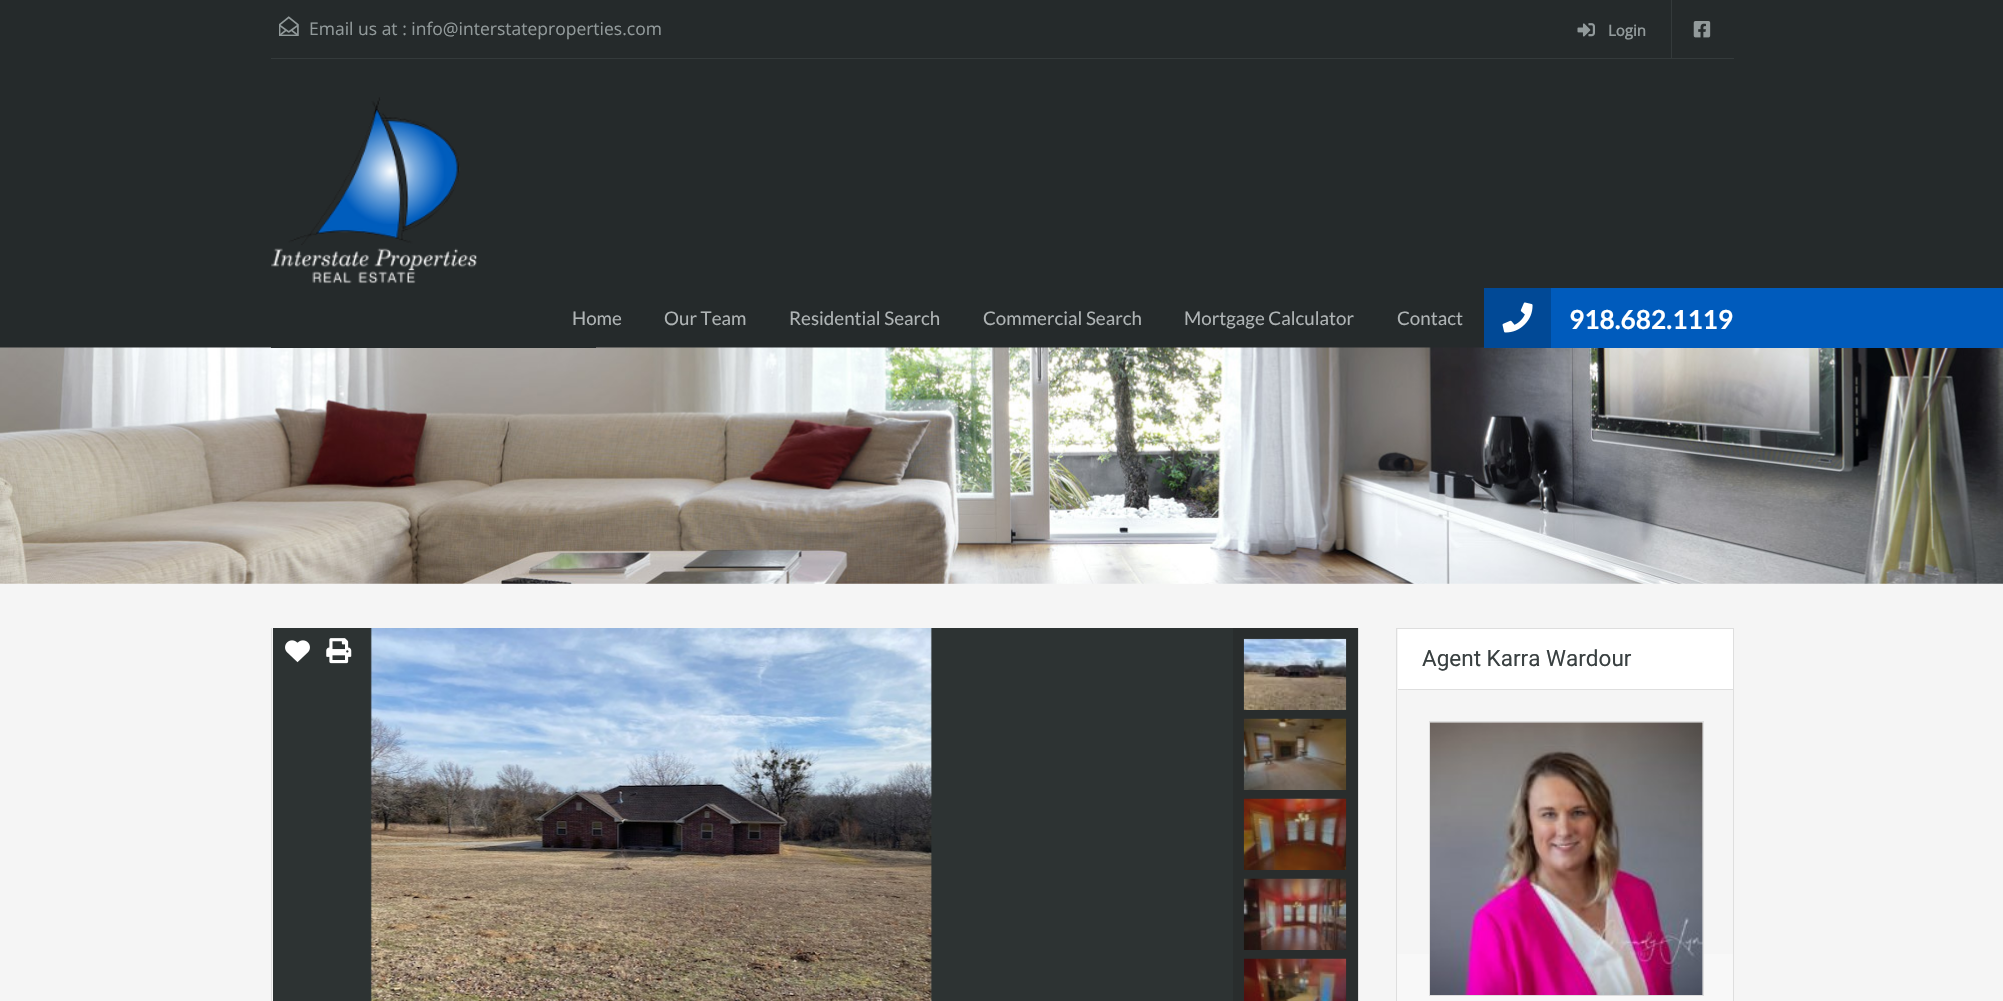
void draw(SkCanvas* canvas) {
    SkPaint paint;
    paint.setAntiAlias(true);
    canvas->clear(0xFFF5F5F5);
    paint.setColor(0xFF252A2B);
    canvas->drawRect(SkRect::MakeXYWH(0, 0, 2003, 348), paint);
    paint.setColor(0xFF343A3B);
    canvas->drawRect(SkRect::MakeXYWH(271, 58, 1463, 1), paint);
    canvas->drawImageRect(SkImages::DeferredFromEncodedData(SkData::MakeFromFileName("img1.png")), SkRect::MakeXYWH(279, 16, 20, 20), SkSamplingOptions());
    SkFont font1(fontMgr->matchFamilyStyle("Open Sans", SkFontStyle::Normal()), 17.5f);
    font1.setSubpixel(true);
    paint.setColor(0xFF929A9B);
    canvas->drawString("Email us at : info@interstateproperties.com", 309, 35, font1, paint);
    canvas->drawImageRect(SkImages::DeferredFromEncodedData(SkData::MakeFromFileName("img2.png")), SkRect::MakeXYWH(1577, 23, 18, 14), SkSamplingOptions());
    SkFont font2(fontMgr->matchFamilyStyle("Open Sans", SkFontStyle::Bold()), 15);
    font2.setSubpixel(true);
    canvas->drawString("Login", 1608, 36, font2, paint);
    paint.setColor(0xFF343A3B);
    canvas->drawRect(SkRect::MakeXYWH(1671, 0, 1, 58), paint);
    canvas->drawImageRect(SkImages::DeferredFromEncodedData(SkData::MakeFromFileName("img3.png")), SkRect::MakeXYWH(1693, 21, 18, 17), SkSamplingOptions());
    canvas->drawImageRect(SkImages::DeferredFromEncodedData(SkData::MakeFromFileName("img4.png")), SkRect::MakeXYWH(271, 97, 206, 187), SkSamplingOptions());
    canvas->drawImageRect(SkImages::DeferredFromEncodedData(SkData::MakeFromFileName("img6.png")), SkRect::MakeXYWH(0, 347, 2003, 237), SkSamplingOptions());
    paint.setColor(0xFF252A2B);
    canvas->drawRect(SkRect::MakeXYWH(271, 347, 325, 1), paint);
    SkFont font3(fontMgr->matchFamilyStyle("Lato", SkFontStyle::Normal()), 18.75f);
    font3.setSubpixel(true);
    paint.setColor(0xFFAFB4B5);
    canvas->drawString("Home", 572, 325, font3, paint);
    canvas->drawString("Our Team", 664, 325, font3, paint);
    canvas->drawString("Residential Search", 789, 325, font3, paint);
    canvas->drawString("Commercial Search", 983, 325, font3, paint);
    canvas->drawString("Mortgage Calculator", 1184, 325, font3, paint);
    canvas->drawString("Contact", 1397, 325, font3, paint);
    paint.setColor(0xFF005BBC);
    canvas->drawRect(SkRect::MakeXYWH(1551, 288, 452, 60), paint);
    paint.setColor(0xFF014996);
    canvas->drawRect(SkRect::MakeXYWH(1484, 288, 67, 60), paint);
    canvas->drawImageRect(SkImages::DeferredFromEncodedData(SkData::MakeFromFileName("img5.png")), SkRect::MakeXYWH(1502, 302, 31, 31), SkSamplingOptions());
    SkFont font4(fontMgr->matchFamilyStyle("Lato", SkFontStyle::Bold()), 26.25f);
    font4.setSubpixel(true);
    paint.setColor(0xFFFFFFFF);
    canvas->drawString("918.682.1119", 1569, 329, font4, paint);
    paint.setColor(0xFFDEDEDE);
    canvas->drawRect(SkRect::MakeXYWH(1358, 628, 1, 373), paint);
    canvas->drawRect(SkRect::MakeXYWH(271, 628, 1, 373), paint);
    paint.setColor(0xFF292D2D);
    canvas->drawRect(SkRect::MakeXYWH(1233, 628, 125, 373), paint);
    paint.setColor(0xFF2D3333);
    canvas->drawRect(SkRect::MakeXYWH(273, 628, 960, 373), paint);
    canvas->drawImageRect(SkImages::DeferredFromEncodedData(SkData::MakeFromFileName("img7.png")), SkRect::MakeXYWH(370, 628, 562, 373), SkSamplingOptions());
    canvas->drawImageRect(SkImages::DeferredFromEncodedData(SkData::MakeFromFileName("img8.png")), SkRect::MakeXYWH(1243, 638, 104, 72), SkSamplingOptions());
    canvas->drawImageRect(SkImages::DeferredFromEncodedData(SkData::MakeFromFileName("img9.png")), SkRect::MakeXYWH(1243, 718, 104, 72), SkSamplingOptions());
    canvas->drawImageRect(SkImages::DeferredFromEncodedData(SkData::MakeFromFileName("img10.png")), SkRect::MakeXYWH(1243, 798, 104, 72), SkSamplingOptions());
    canvas->drawImageRect(SkImages::DeferredFromEncodedData(SkData::MakeFromFileName("img11.png")), SkRect::MakeXYWH(1243, 878, 104, 72), SkSamplingOptions());
    canvas->drawImageRect(SkImages::DeferredFromEncodedData(SkData::MakeFromFileName("img12.png")), SkRect::MakeXYWH(1244, 958, 103, 43), SkSamplingOptions());
    canvas->drawImageRect(SkImages::DeferredFromEncodedData(SkData::MakeFromFileName("img13.png")), SkRect::MakeXYWH(285, 640, 25, 23), SkSamplingOptions());
    canvas->drawImageRect(SkImages::DeferredFromEncodedData(SkData::MakeFromFileName("img14.png")), SkRect::MakeXYWH(326, 638, 26, 26), SkSamplingOptions());
    {
        const SkColor colors[] = {0xFFFFFFFF, 0xFFF5F5F5};
        const float stops[] = {0, 1};
        const SkPoint ends[] = {{1565, 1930}, {1565, 629}};
        paint.setShader(SkGradientShader::MakeLinear(ends, colors, stops, 2, SkTileMode::kClamp));
        paint.setAlpha(255);
    }
    canvas->drawRect(SkRect::MakeXYWH(1397, 954, 336, 47), paint);
    paint.setStyle(SkPaint::kStroke_Style);
    paint.setStrokeWidth(1);
    paint.setShader(nullptr);
    paint.setColor(0xFFDEDEDE);
    canvas->drawRect(SkRect::MakeXYWH(1396.5f, 628.5f, 337, 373), paint);
    paint.setStyle(SkPaint::kFill_Style);
    paint.setColor(0xFFFFFFFF);
    canvas->drawRect(SkRect::MakeXYWH(1398, 629, 335, 60), paint);
    paint.setColor(0xFFDEDEDE);
    canvas->drawRect(SkRect::MakeXYWH(1398, 689, 335, 1), paint);
    SkFont font5(fontMgr->matchFamilyStyle("Roboto", SkFontStyle::Normal()), 22.5f);
    font5.setSubpixel(true);
    paint.setColor(0xFF394041);
    canvas->drawString("Agent Karra Wardour", 1422, 666, font5, paint);
    paint.setStyle(SkPaint::kStroke_Style);
    paint.setColor(0xFFDEDEDE);
    canvas->drawRect(SkRect::MakeXYWH(1429.5f, 721.5f, 274, 274), paint);
    canvas->drawImageRect(SkImages::DeferredFromEncodedData(SkData::MakeFromFileName("img15.png")), SkRect::MakeXYWH(1430, 722, 273, 273), SkSamplingOptions());
}
